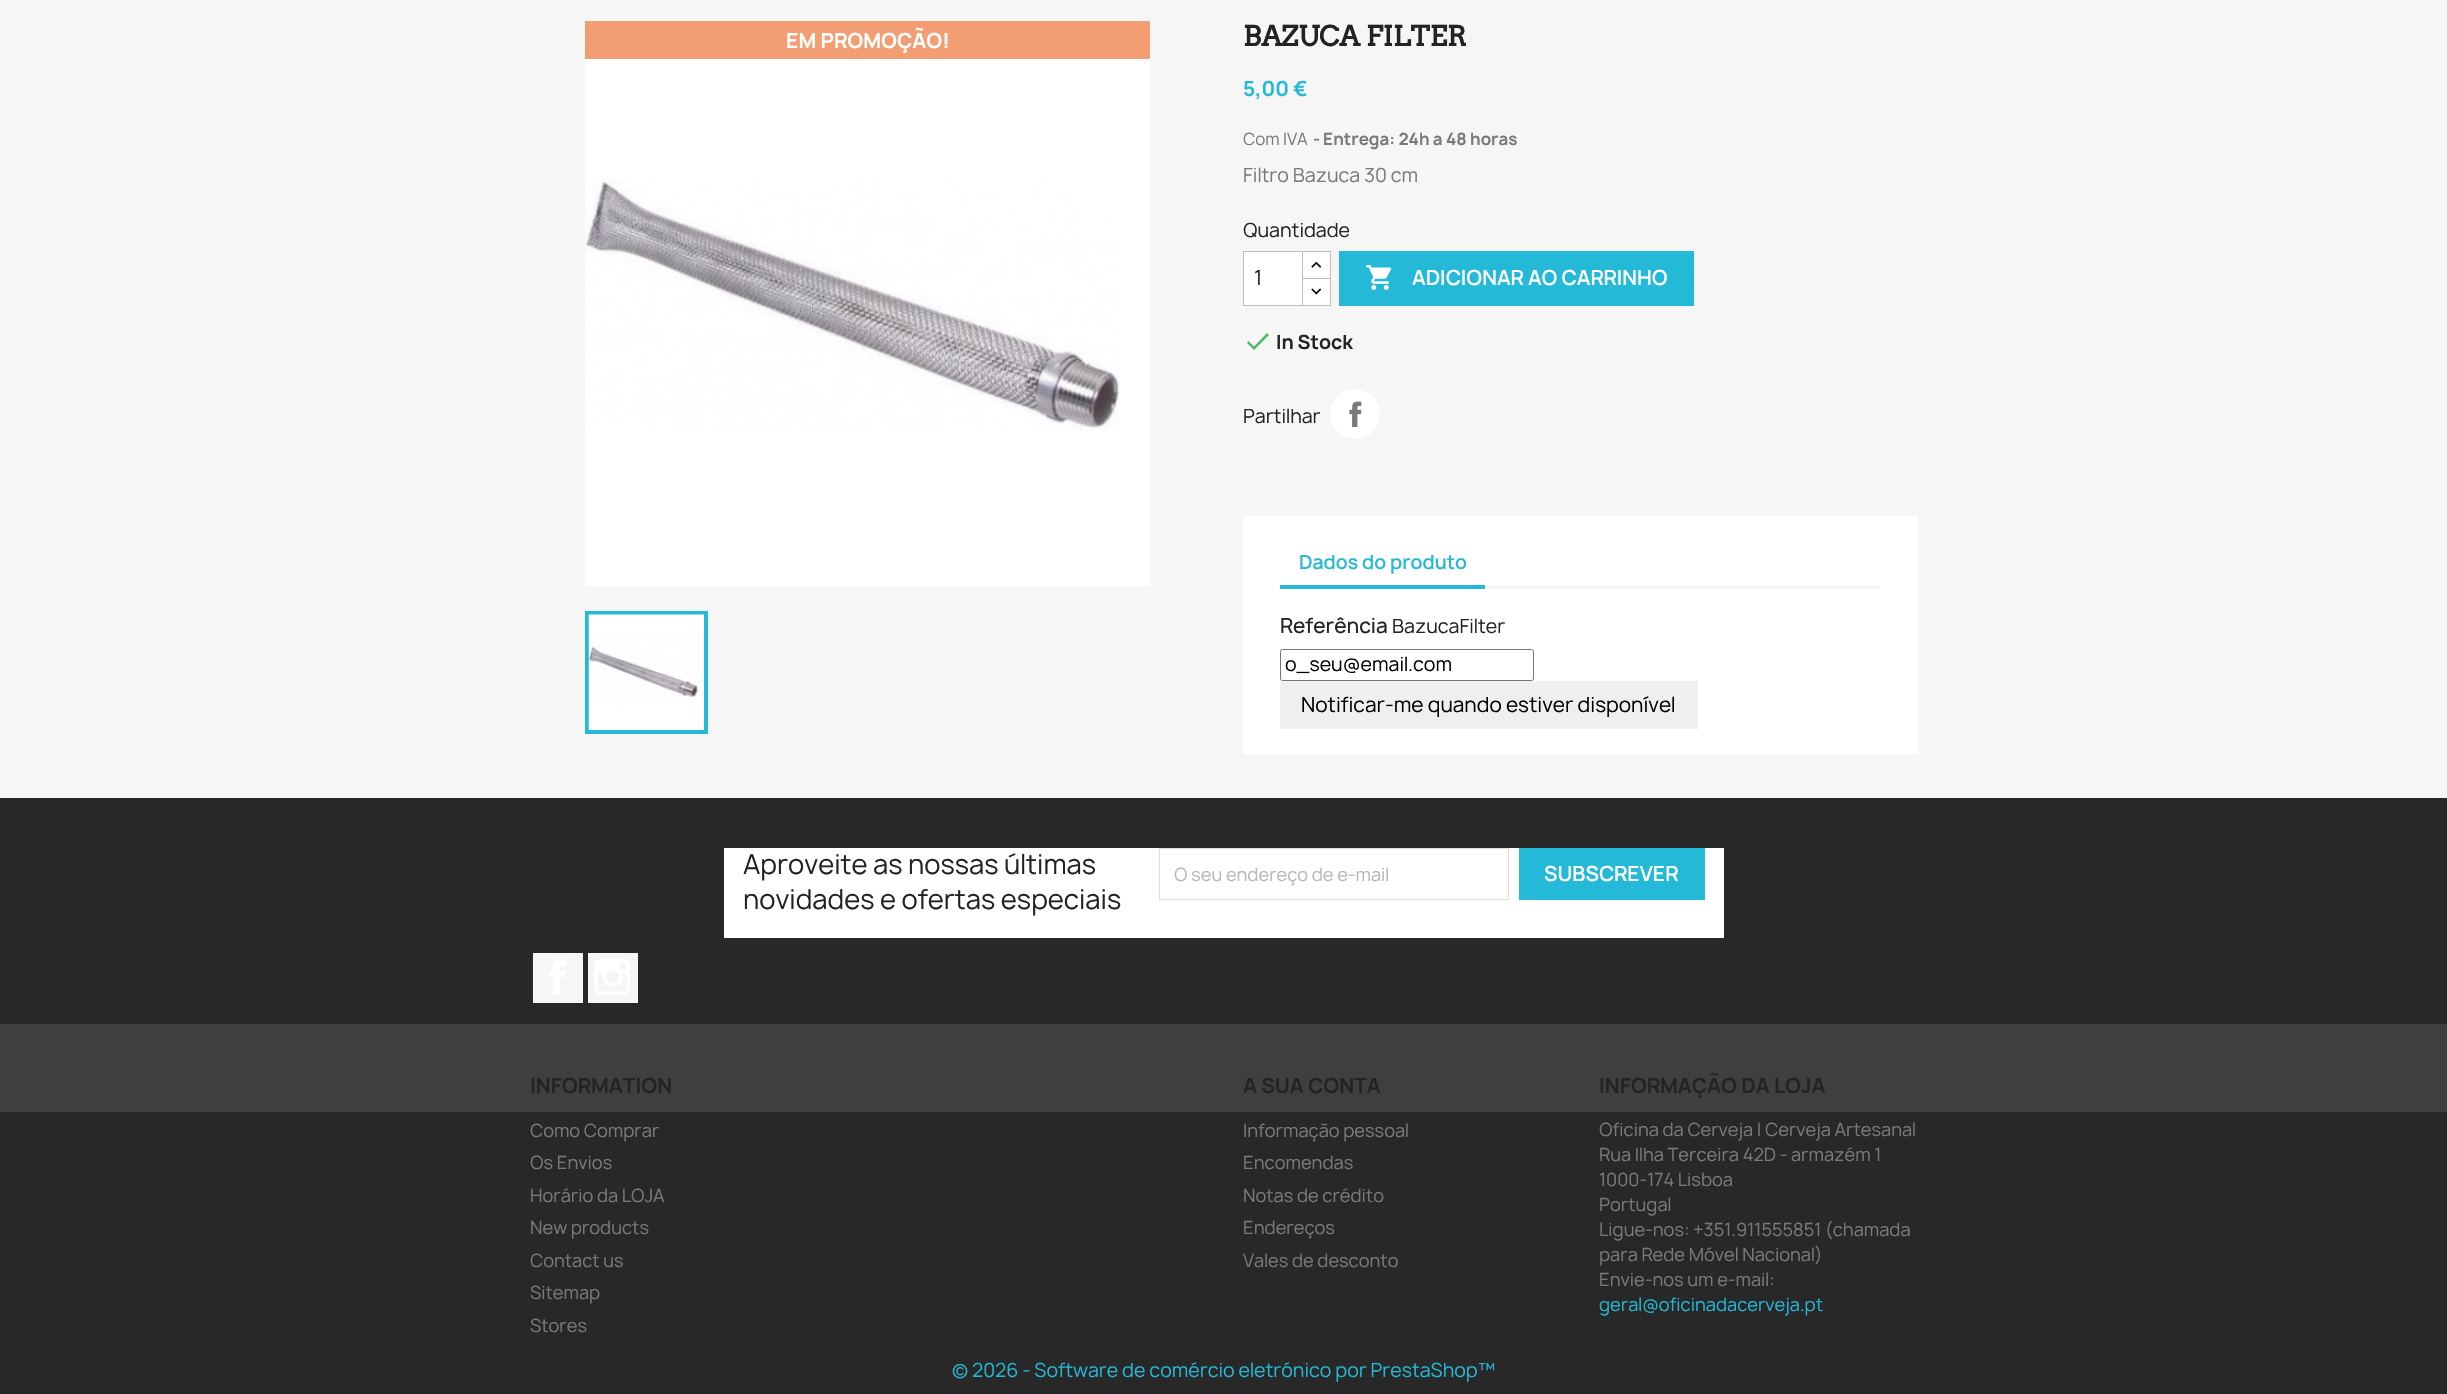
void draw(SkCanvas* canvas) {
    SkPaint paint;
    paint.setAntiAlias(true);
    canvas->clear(0xFF282828);
    paint.setColor(0xFFF6F6F6);
    canvas->drawRect(SkRect::MakeXYWH(0, 0, 2447, 798), paint);
    paint.setColor(0xFFF39D72);
    canvas->drawRect(SkRect::MakeXYWH(585, 21, 565, 38), paint);
    SkFont font1(fontMgr->matchFamilyStyle("Manrope", SkFontStyle::Bold()), 20);
    font1.setSubpixel(true);
    paint.setColor(0xFFFFFFFF);
    canvas->drawString("EM PROMOÇÃO!", 786, 48, font1, paint);
    canvas->drawRect(SkRect::MakeXYWH(585, 59, 565, 527), paint);
    canvas->drawImageRect(SkImages::DeferredFromEncodedData(SkData::MakeFromFileName("img1.png")), SkRect::MakeXYWH(585, 179, 535, 252), SkSamplingOptions());
    paint.setStyle(SkPaint::kStroke_Style);
    paint.setStrokeWidth(4);
    paint.setColor(0xFF24B9D7);
    canvas->drawRect(SkRect::MakeXYWH(587, 613, 119, 119), paint);
    canvas->drawImageRect(SkImages::DeferredFromEncodedData(SkData::MakeFromFileName("img2.png")), SkRect::MakeXYWH(588, 614, 116, 116), SkSamplingOptions());
    SkFont font2(fontMgr->matchFamilyStyle("Arvo", SkFontStyle::Bold()), 27.5f);
    font2.setSubpixel(true);
    paint.setStyle(SkPaint::kFill_Style);
    paint.setColor(0xFF232323);
    canvas->drawString("BAZUCA FILTER", 1243, 46, font2, paint);
    paint.setColor(0xFF24B9D7);
    canvas->drawString("5,00 €", 1243, 96, font1, paint);
    SkFont font3(fontMgr->matchFamilyStyle("Manrope", SkFontStyle::Normal()), 16.25f);
    font3.setSubpixel(true);
    paint.setColor(0xFF7A7A7A);
    canvas->drawString("Com IVA", 1243, 145, font3, paint);
    SkFont font4(fontMgr->matchFamilyStyle("Manrope", SkFontStyle::Bold()), 16.25f);
    font4.setSubpixel(true);
    canvas->drawString("-", 1313, 145, font4, paint);
    canvas->drawString("Entrega: 24h a 48 horas", 1323, 145, font4, paint);
    SkFont font5(fontMgr->matchFamilyStyle("Manrope", SkFontStyle::Normal()), 18.75f);
    font5.setSubpixel(true);
    canvas->drawString("Filtro Bazuca 30 cm", 1243, 182, font5, paint);
    paint.setColor(0xFF232323);
    canvas->drawString("Quantidade", 1243, 237, font5, paint);
    paint.setColor(0xFFFFFFFF);
    canvas->drawRect(SkRect::MakeXYWH(1303, 252, 27, 26), paint);
    paint.setStyle(SkPaint::kStroke_Style);
    paint.setStrokeWidth(1);
    paint.setColor(0xFFBFBFBF);
    canvas->drawRect(SkRect::MakeXYWH(1301.5f, 251.5f, 29, 28), paint);
    paint.setStyle(SkPaint::kFill_Style);
    paint.setColor(0xFFFFFFFF);
    canvas->drawRect(SkRect::MakeXYWH(1303, 279, 27, 26), paint);
    paint.setStyle(SkPaint::kStroke_Style);
    paint.setColor(0xFFBFBFBF);
    canvas->drawRect(SkRect::MakeXYWH(1301.5f, 278.5f, 29, 27), paint);
    paint.setStyle(SkPaint::kFill_Style);
    paint.setColor(0xFFFFFFFF);
    canvas->drawRect(SkRect::MakeXYWH(1243.5f, 251.5f, 59, 54), paint);
    paint.setStyle(SkPaint::kStroke_Style);
    paint.setColor(0xFFBFBFBF);
    canvas->drawRect(SkRect::MakeXYWH(1243.5f, 251.5f, 59, 54), paint);
    SkFont font6(fontMgr->matchFamilyStyle("Manrope", SkFontStyle::Normal()), 20);
    font6.setSubpixel(true);
    paint.setStyle(SkPaint::kFill_Style);
    paint.setColor(0xFF232323);
    canvas->drawString("1", 1254, 285, font6, paint);
    canvas->drawImageRect(SkImages::DeferredFromEncodedData(SkData::MakeFromFileName("img3.png")), SkRect::MakeXYWH(1311, 261, 11, 7), SkSamplingOptions());
    canvas->drawImageRect(SkImages::DeferredFromEncodedData(SkData::MakeFromFileName("img4.png")), SkRect::MakeXYWH(1311, 288, 11, 7), SkSamplingOptions());
    paint.setColor(0xFF24B9D7);
    canvas->drawRect(SkRect::MakeXYWH(1339, 251, 355, 55), paint);
    canvas->drawImageRect(SkImages::DeferredFromEncodedData(SkData::MakeFromFileName("img5.png")), SkRect::MakeXYWH(1366, 265, 26, 25), SkSamplingOptions());
    SkFont font7(fontMgr->matchFamilyStyle("Manrope", SkFontStyle(600, SkFontStyle::kNormal_Width, SkFontStyle::kUpright_Slant)), 20);
    font7.setSubpixel(true);
    paint.setColor(0xFFFFFFFF);
    canvas->drawString("ADICIONAR AO CARRINHO", 1412, 285, font7, paint);
    paint.setColor(0xFF4CBB6C);
    canvas->drawPath(SkPathBuilder().moveTo(1254, 346.5f).lineTo(1267, 333).lineTo(1269, 335).lineTo(1254, 350).lineTo(1247, 343).lineTo(1248.5f, 341).close().detach(), paint);
    SkFont font8(fontMgr->matchFamilyStyle("Manrope", SkFontStyle::Bold()), 18.75f);
    font8.setSubpixel(true);
    paint.setColor(0xFF232323);
    canvas->drawString("In Stock", 1276, 349, font8, paint);
    canvas->drawString("Partilhar", 1243, 423, font5, paint);
    paint.setColor(0xFFFFFFFF);
    canvas->drawCircle(1355, 414, 25, paint);
    canvas->drawImageRect(SkImages::DeferredFromEncodedData(SkData::MakeFromFileName("img6.png")), SkRect::MakeXYWH(1349, 401, 13, 26), SkSamplingOptions());
    canvas->drawRect(SkRect::MakeXYWH(1243, 516, 675, 238), paint);
    paint.setColor(0xFFF6F6F6);
    canvas->drawRect(SkRect::MakeXYWH(1485, 586, 395, 3), paint);
    paint.setColor(0xFF24B9D7);
    canvas->drawRect(SkRect::MakeXYWH(1280, 585, 205, 4), paint);
    SkFont font9(fontMgr->matchFamilyStyle("Manrope", SkFontStyle(600, SkFontStyle::kNormal_Width, SkFontStyle::kUpright_Slant)), 18.75f);
    font9.setSubpixel(true);
    canvas->drawString("Dados do produto", 1299, 569, font9, paint);
    SkFont font10(fontMgr->matchFamilyStyle("Manrope", SkFontStyle(500, SkFontStyle::kNormal_Width, SkFontStyle::kUpright_Slant)), 20);
    font10.setSubpixel(true);
    paint.setColor(0xFF232323);
    canvas->drawString("Referência", 1280, 633, font10, paint);
    canvas->drawString("BazucaFilter", 1392, 633, font5, paint);
    paint.setStyle(SkPaint::kStroke_Style);
    paint.setColor(0xFF767676);
    canvas->drawRoundRect(SkRect::MakeXYWH(1280.5f, 649.5f, 253, 31), 2, 2, paint);
    paint.setStyle(SkPaint::kFill_Style);
    paint.setColor(0xFF000000);
    canvas->drawString("o_seu@email.com", 1285, 671, font5, paint);
    paint.setColor(0xFFEFEFEF);
    canvas->drawRect(SkRect::MakeXYWH(1280, 681, 418, 48), paint);
    paint.setColor(0xFF000000);
    canvas->drawString("Notificar-me quando estiver disponível", 1301, 712, font6, paint);
    paint.setColor(0xFFFFFFFF);
    canvas->drawRect(SkRect::MakeXYWH(724, 848, 1000, 90), paint);
    SkFont font11(fontMgr->matchFamilyStyle("Manrope", SkFontStyle::Normal()), 26.25f);
    font11.setSubpixel(true);
    paint.setColor(0xFF232323);
    canvas->drawString("Aproveite as nossas últimas", 743, 874, font11, paint);
    canvas->drawString("novidades e ofertas especiais", 743, 909, font11, paint);
    paint.setStyle(SkPaint::kStroke_Style);
    paint.setColor(0xFFDDDDDD);
    canvas->drawRect(SkRect::MakeXYWH(1159.5f, 848.5f, 349, 51), paint);
    SkFont font12(fontMgr->matchFamilyStyle("Manrope", SkFontStyle::Normal()), 17.5f);
    font12.setSubpixel(true);
    paint.setStyle(SkPaint::kFill_Style);
    paint.setColor(0xFFB7B7B7);
    canvas->drawString("O seu endereço de e-mail", 1174, 881, font12, paint);
    paint.setColor(0xFF24B9D7);
    canvas->drawRect(SkRect::MakeXYWH(1519, 848, 186, 52), paint);
    paint.setColor(0xFFFFFFFF);
    canvas->drawString("SUBSCREVER", 1544, 881, font7, paint);
    paint.setColor(0xFFF6F6F6);
    canvas->drawRect(SkRect::MakeXYWH(533, 953, 50, 50), paint);
    canvas->drawImageRect(SkImages::DeferredFromEncodedData(SkData::MakeFromFileName("img7.png")), SkRect::MakeXYWH(549, 959, 17, 36), SkSamplingOptions());
    canvas->drawRect(SkRect::MakeXYWH(588, 953, 50, 50), paint);
    canvas->drawImageRect(SkImages::DeferredFromEncodedData(SkData::MakeFromFileName("img8.png")), SkRect::MakeXYWH(594, 959, 36, 36), SkSamplingOptions());
    paint.setColor(0xFF3F3F3F);
    canvas->drawRect(SkRect::MakeXYWH(0, 1024, 2447, 88), paint);
    paint.setColor(0xFF232323);
    canvas->drawString("INFORMATION", 530, 1093, font1, paint);
    paint.setColor(0xFF7A7A7A);
    canvas->drawString("Como Comprar", 530, 1137, font12, paint);
    canvas->drawString("Os Envios", 530, 1169, font12, paint);
    canvas->drawString("Horário da LOJA", 530, 1202, font12, paint);
    canvas->drawString("New products", 530, 1234, font12, paint);
    canvas->drawString("Contact us", 530, 1267, font12, paint);
    canvas->drawString("Sitemap", 530, 1299, font12, paint);
    canvas->drawString("Stores", 530, 1332, font12, paint);
    paint.setColor(0xFF232323);
    canvas->drawString("A SUA CONTA", 1243, 1093, font1, paint);
    paint.setColor(0xFF7A7A7A);
    canvas->drawString("Informação pessoal", 1243, 1137, font12, paint);
    canvas->drawString("Encomendas", 1243, 1169, font12, paint);
    canvas->drawString("Notas de crédito", 1243, 1202, font12, paint);
    canvas->drawString("Endereços", 1243, 1234, font12, paint);
    canvas->drawString("Vales de desconto", 1243, 1267, font12, paint);
    paint.setColor(0xFF232323);
    canvas->drawString("INFORMAÇÃO DA LOJA", 1599, 1093, font1, paint);
    paint.setColor(0xFF7A7A7A);
    canvas->drawString("Oficina da Cerveja | Cerveja Artesanal", 1599, 1136, font12, paint);
    canvas->drawString("Rua Ilha Terceira 42D - armazém 1", 1599, 1161, font12, paint);
    canvas->drawString("1000-174 Lisboa", 1599, 1186, font12, paint);
    canvas->drawString("Portugal", 1599, 1211, font12, paint);
    canvas->drawString("Ligue-nos: +351.911555851 (chamada", 1599, 1236, font12, paint);
    canvas->drawString("para Rede Móvel Nacional)", 1599, 1261, font12, paint);
    canvas->drawString("Envie-nos um e-mail:", 1599, 1286, font12, paint);
    paint.setColor(0xFF24B9D7);
    canvas->drawString("geral@oficinadacerveja.pt", 1599, 1311, font12, paint);
    canvas->drawString("© 2026 - Software de comércio eletrónico por PrestaShop™", 952, 1377, font5, paint);
}
